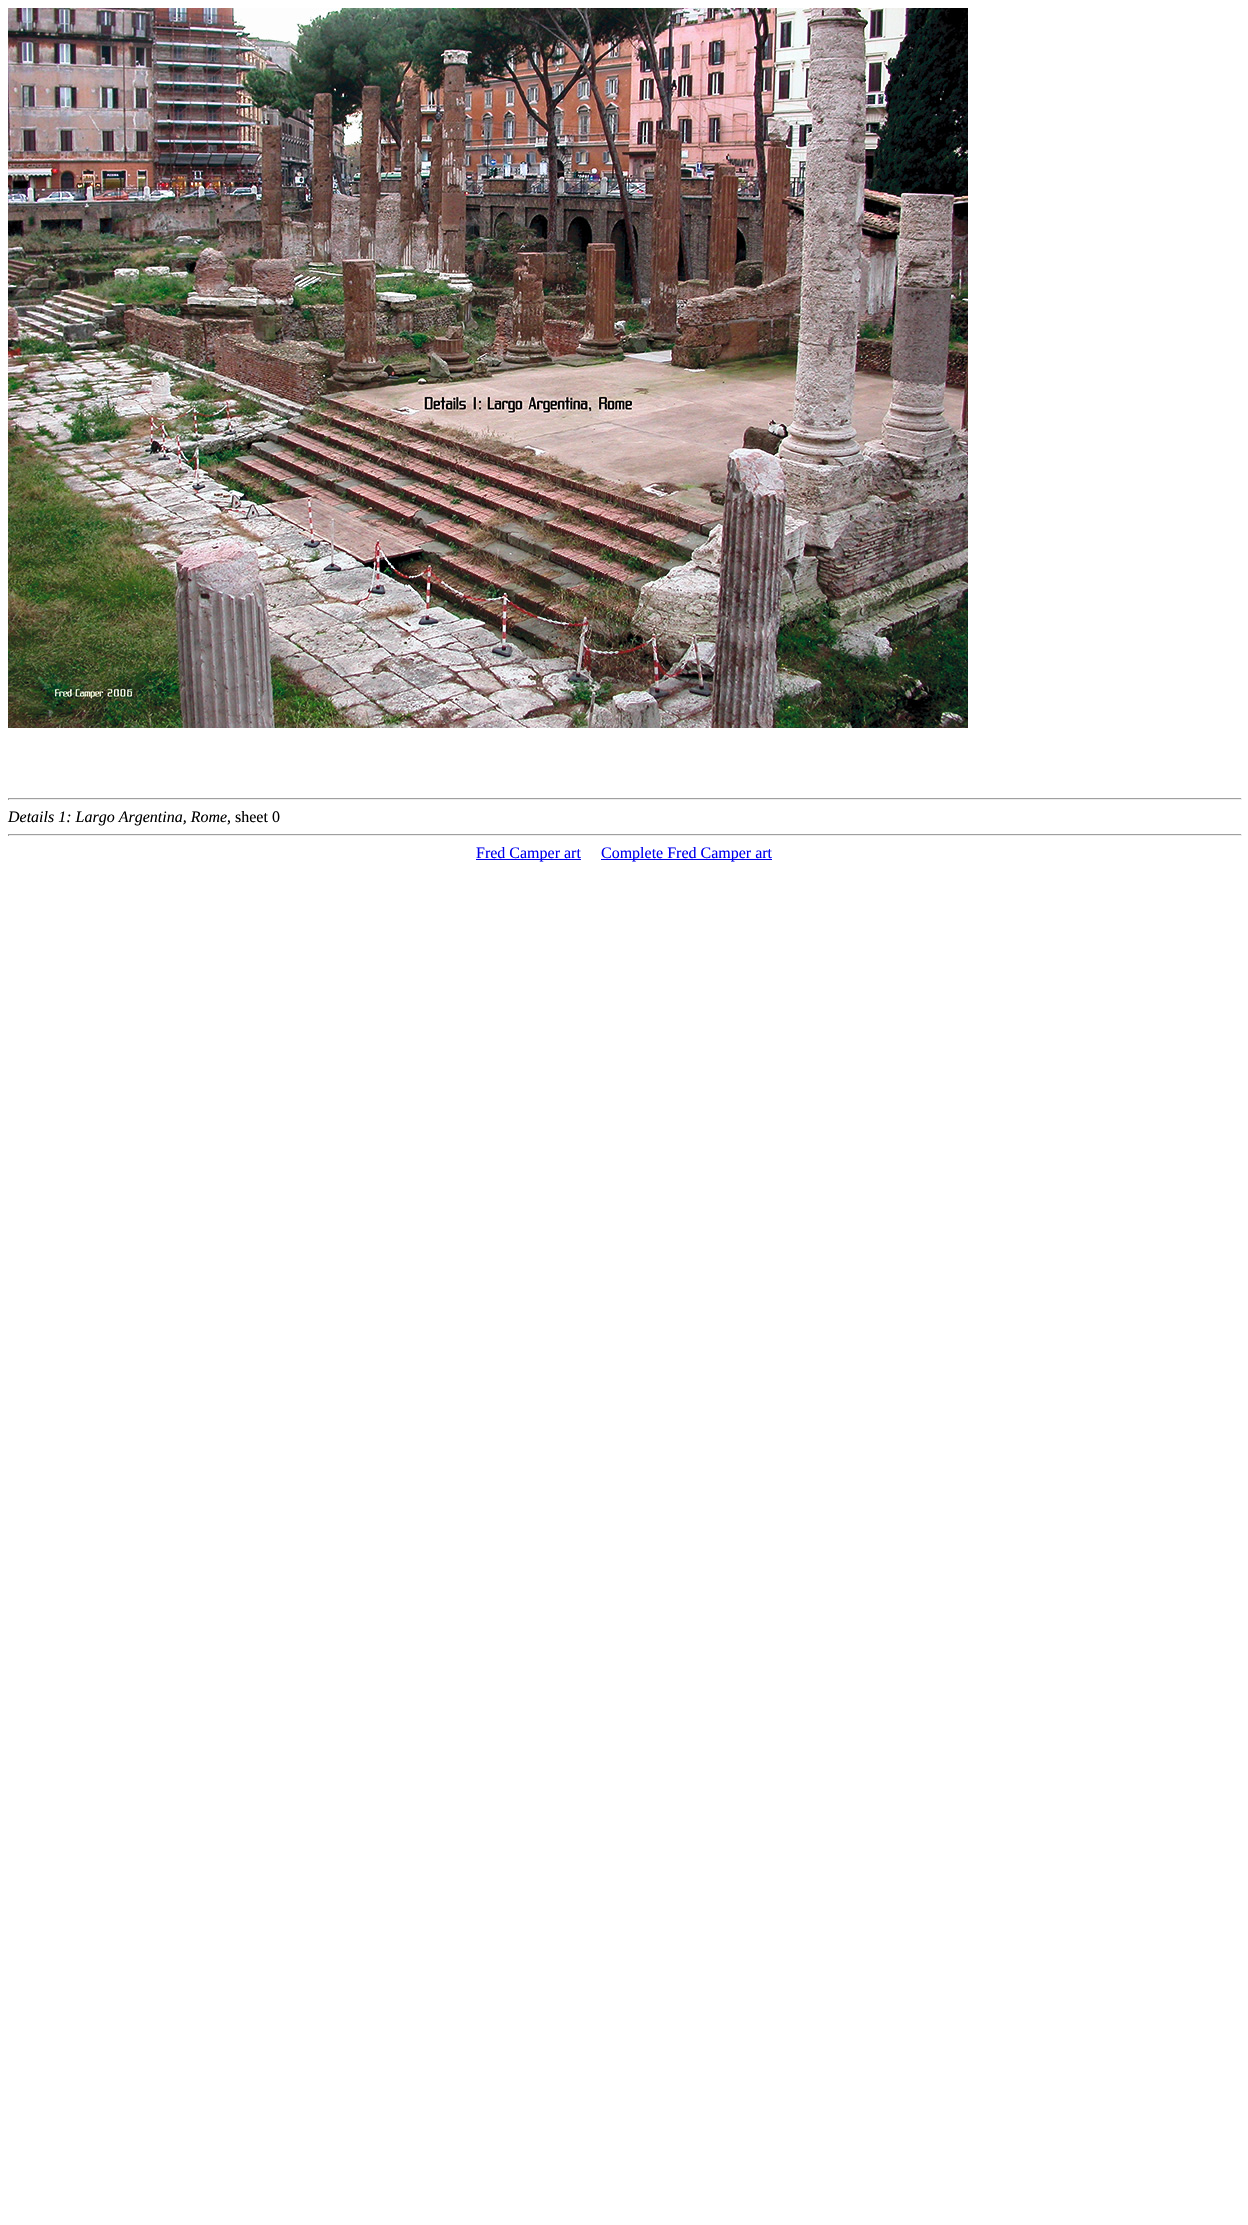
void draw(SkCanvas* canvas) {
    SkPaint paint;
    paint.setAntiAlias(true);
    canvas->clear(0xFFFFFFFF);
    canvas->drawImageRect(SkImages::DeferredFromEncodedData(SkData::MakeFromFileName("img1.png")), SkRect::MakeXYWH(8, 8, 960, 720), SkSamplingOptions());
    paint.setColor(0xFF9F9F9F);
    canvas->drawRect(SkRect::MakeXYWH(8, 798, 1234, 1), paint);
    paint.setColor(0xFFEEEEEE);
    canvas->drawRect(SkRect::MakeXYWH(1241, 798, 1, 2), paint);
    canvas->drawRect(SkRect::MakeXYWH(8, 799, 1234, 1), paint);
    paint.setColor(0xFF9F9F9F);
    canvas->drawRect(SkRect::MakeXYWH(8, 798, 1, 2), paint);
    SkFont font1(fontMgr->matchFamilyStyle("Liberation Serif", SkFontStyle::Italic()), 16);
    font1.setSubpixel(true);
    paint.setColor(0xFF000000);
    canvas->drawString("Details 1: Largo Argentina, Rome", 8, 822, font1, paint);
    SkFont font2(fontMgr->matchFamilyStyle("Liberation Serif", SkFontStyle::Normal()), 16);
    font2.setSubpixel(true);
    canvas->drawString(", sheet 0", 227, 822, font2, paint);
    paint.setColor(0xFF9F9F9F);
    canvas->drawRect(SkRect::MakeXYWH(8, 834, 1234, 1), paint);
    paint.setColor(0xFFEEEEEE);
    canvas->drawRect(SkRect::MakeXYWH(1241, 834, 1, 2), paint);
    canvas->drawRect(SkRect::MakeXYWH(8, 835, 1234, 1), paint);
    paint.setColor(0xFF9F9F9F);
    canvas->drawRect(SkRect::MakeXYWH(8, 834, 1, 2), paint);
    paint.setColor(0xFF0000EE);
    canvas->drawRect(SkRect::MakeXYWH(476, 859, 105, 1), paint);
    canvas->drawString("Fred Camper art", 476, 858, font2, paint);
    canvas->drawRect(SkRect::MakeXYWH(601, 859, 171, 1), paint);
    canvas->drawString("Complete Fred Camper art", 601, 858, font2, paint);
}
